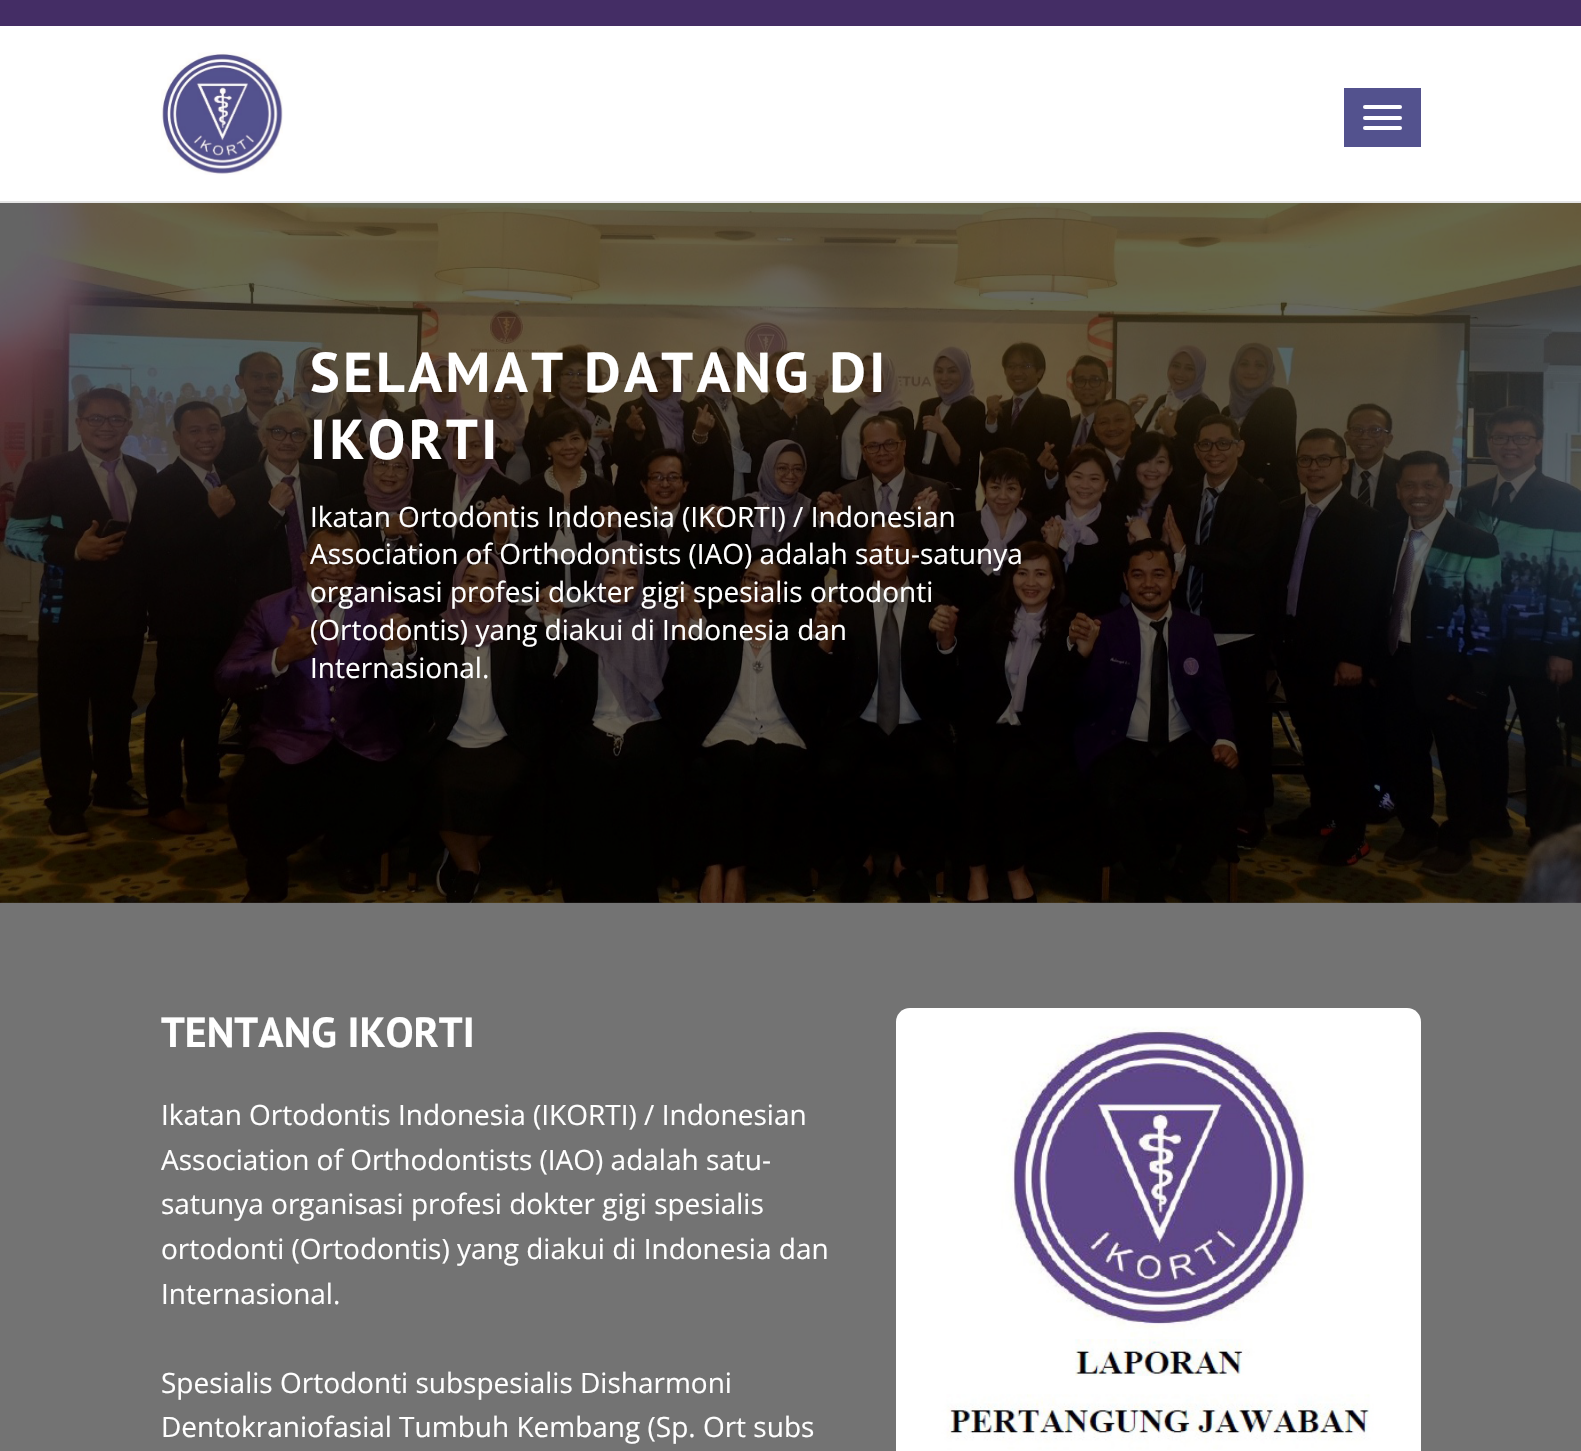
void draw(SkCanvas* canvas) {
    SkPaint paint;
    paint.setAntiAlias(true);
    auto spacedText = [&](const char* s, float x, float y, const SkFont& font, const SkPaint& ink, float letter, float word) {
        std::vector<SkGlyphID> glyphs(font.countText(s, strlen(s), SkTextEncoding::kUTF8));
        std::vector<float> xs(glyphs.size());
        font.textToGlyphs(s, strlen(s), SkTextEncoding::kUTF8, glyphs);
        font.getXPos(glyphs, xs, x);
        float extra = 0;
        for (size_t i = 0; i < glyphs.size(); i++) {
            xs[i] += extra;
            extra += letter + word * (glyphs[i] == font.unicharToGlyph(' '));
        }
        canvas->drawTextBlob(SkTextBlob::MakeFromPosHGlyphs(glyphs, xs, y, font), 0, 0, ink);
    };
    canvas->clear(0xFF737373);
    paint.setColor(0xFFFFFFFF);
    canvas->drawRect(SkRect::MakeXYWH(0, 26, 1581, 175), paint);
    paint.setColor(0xFFE5E5E5);
    canvas->drawRect(SkRect::MakeXYWH(0, 201, 1581, 2), paint);
    paint.setColor(0xFF442D65);
    canvas->drawRect(SkRect::MakeXYWH(0, 0, 1581, 26), paint);
    canvas->drawImageRect(SkImages::DeferredFromEncodedData(SkData::MakeFromFileName("img1.png")), SkRect::MakeXYWH(161, 52, 122, 123), SkSamplingOptions());
    paint.setColor(0xFF53528E);
    canvas->drawRect(SkRect::MakeXYWH(1344, 88, 77, 59), paint);
    paint.setColor(0xFFFFFFFF);
    canvas->drawRoundRect(SkRect::MakeXYWH(1363, 105, 39, 4), 2, 2, paint);
    canvas->drawRoundRect(SkRect::MakeXYWH(1363, 116, 39, 4), 2, 2, paint);
    canvas->drawRoundRect(SkRect::MakeXYWH(1363, 126, 39, 4), 2, 2, paint);
    canvas->drawImageRect(SkImages::DeferredFromEncodedData(SkData::MakeFromFileName("img2.png")), SkRect::MakeXYWH(0, 203, 1581, 700), SkSamplingOptions());
    SkFont font1(fontMgr->matchFamilyStyle("PT Sans", SkFontStyle::Bold()), 56);
    font1.setSubpixel(true);
    spacedText("SELAMAT DATANG DI", 310, 392, font1, paint, 3.5f, 0);
    spacedText("IKORTI", 310, 459, font1, paint, 3.5f, 0);
    SkFont font2(fontMgr->matchFamilyStyle("Open Sans", SkFontStyle::Normal()), 28);
    font2.setSubpixel(true);
    canvas->drawString("Ikatan Ortodontis Indonesia (IKORTI) / Indonesian", 310, 527, font2, paint);
    canvas->drawString("Association of Orthodontists (IAO) adalah satu-satunya", 310, 564, font2, paint);
    canvas->drawString("organisasi profesi dokter gigi spesialis ortodonti", 310, 602, font2, paint);
    canvas->drawString("(Ortodontis) yang diakui di Indonesia dan", 310, 640, font2, paint);
    canvas->drawString("Internasional.", 310, 678, font2, paint);
    SkFont font3(fontMgr->matchFamilyStyle("PT Sans", SkFontStyle::Bold()), 42);
    font3.setSubpixel(true);
    canvas->drawString("TENTANG IKORTI", 161, 1047, font3, paint);
    canvas->drawImageRect(SkImages::DeferredFromEncodedData(SkData::MakeFromFileName("img3.png")), SkRect::MakeXYWH(896, 1008, 525, 443), SkSamplingOptions());
    canvas->drawString("Ikatan Ortodontis Indonesia (IKORTI) / Indonesian", 161, 1125, font2, paint);
    canvas->drawString("Association of Orthodontists (IAO) adalah satu-", 161, 1170, font2, paint);
    canvas->drawString("satunya organisasi profesi dokter gigi spesialis", 161, 1214, font2, paint);
    canvas->drawString("ortodonti (Ortodontis) yang diakui di Indonesia dan", 161, 1259, font2, paint);
    canvas->drawString("Internasional.", 161, 1304, font2, paint);
    canvas->drawString("Spesialis Ortodonti subspesialis Disharmoni", 161, 1393, font2, paint);
    canvas->drawString("Dentokraniofasial Tumbuh Kembang (Sp. Ort subs", 161, 1437, font2, paint);
}
